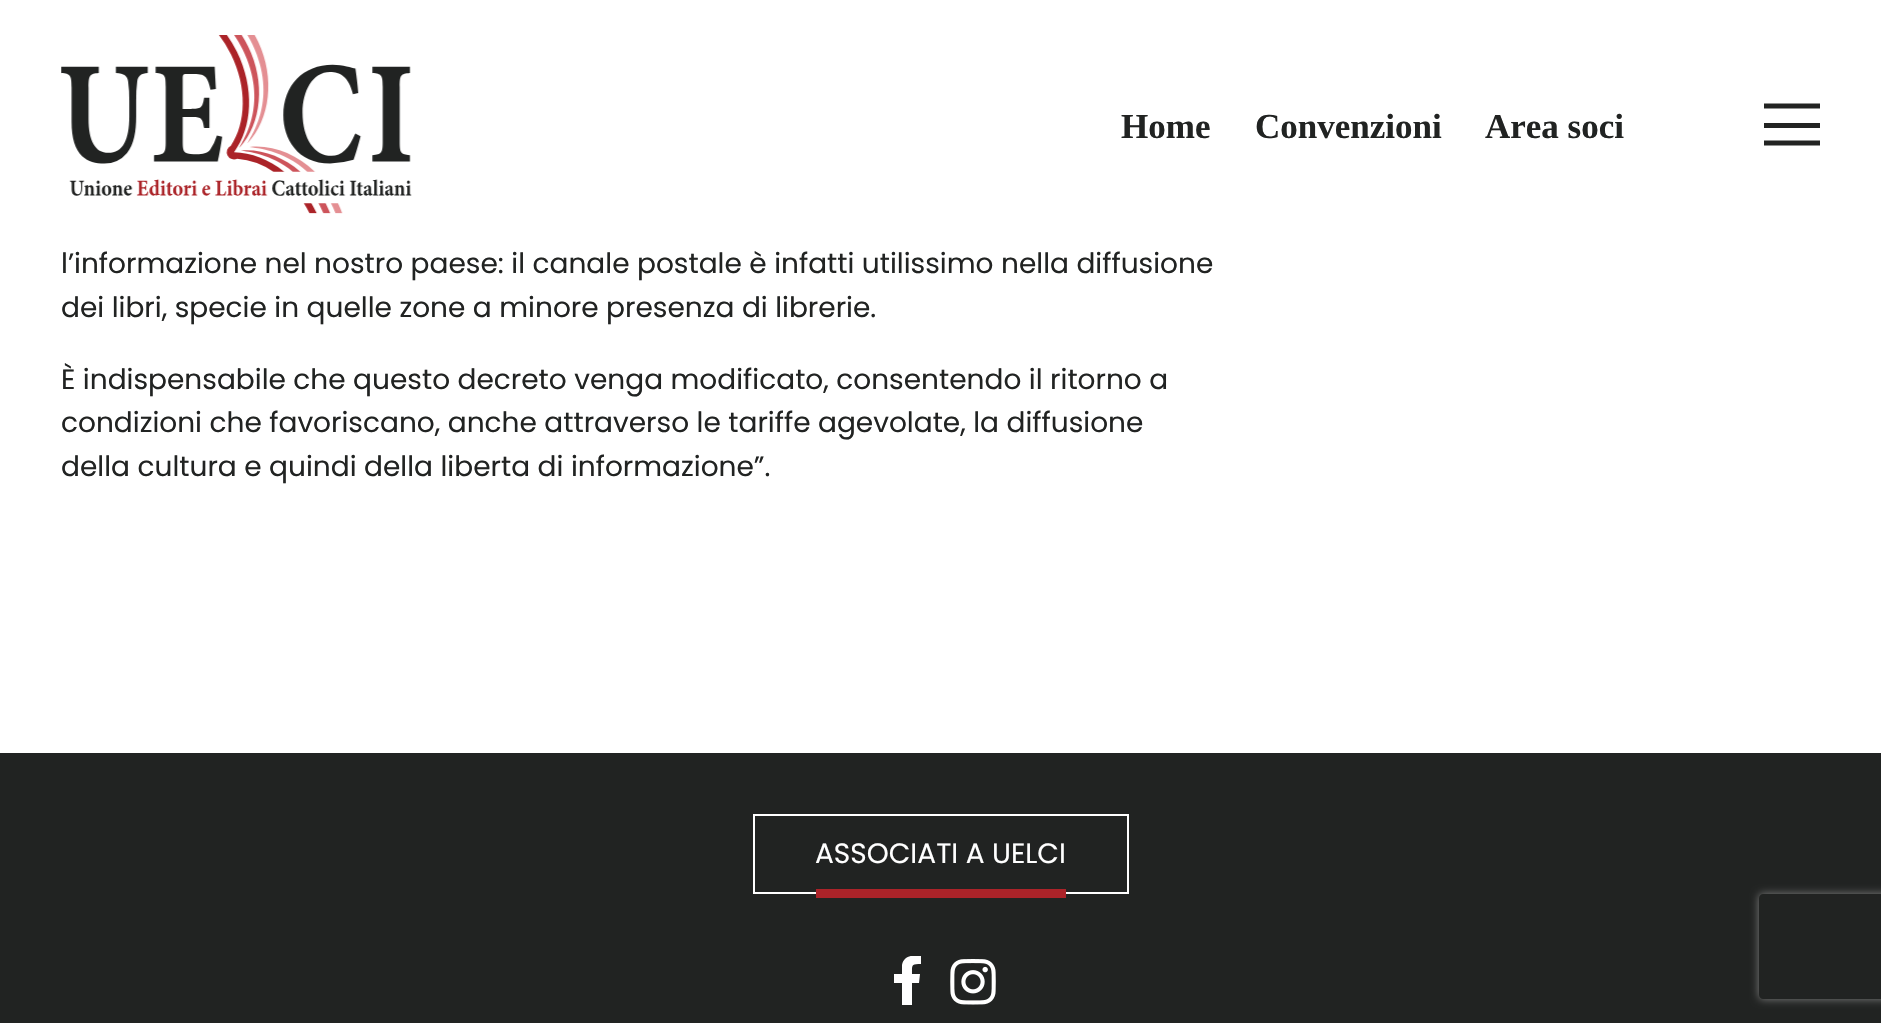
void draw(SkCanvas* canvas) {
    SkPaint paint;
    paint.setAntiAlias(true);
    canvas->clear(0xFFFFFFFF);
    canvas->drawImageRect(SkImages::DeferredFromEncodedData(SkData::MakeFromFileName("img1.png")), SkRect::MakeXYWH(61, 35, 351, 179), SkSamplingOptions());
    SkFont font1(fontMgr->matchFamilyStyle("Liberation Serif", SkFontStyle::Bold()), 35);
    font1.setSubpixel(true);
    paint.setColor(0xFF212322);
    canvas->drawString("Home", 1121, 138, font1, paint);
    canvas->drawString("Convenzioni", 1255, 138, font1, paint);
    canvas->drawString("Area soci", 1485, 138, font1, paint);
    paint.setStyle(SkPaint::kStroke_Style);
    paint.setStrokeWidth(5.2f);
    paint.setColor(0xFF222322);
    canvas->drawPath(SkPathBuilder().moveTo(1764, 106).lineTo(1820, 106).detach(), paint);
    paint.setStyle(SkPaint::kFill_Style);
    canvas->drawRect(SkRect::MakeXYWH(1764, 123, 56, 5), paint);
    paint.setStyle(SkPaint::kStroke_Style);
    canvas->drawPath(SkPathBuilder().moveTo(1764, 143).lineTo(1820, 143).detach(), paint);
    SkFont font2(fontMgr->matchFamilyStyle("Poppins", SkFontStyle::Normal()), 28);
    font2.setSubpixel(true);
    paint.setStyle(SkPaint::kFill_Style);
    paint.setColor(0xFF212322);
    canvas->drawString("l’informazione nel nostro paese: il canale postale è infatti utilissimo nella diffusione", 61, 273, font2, paint);
    canvas->drawString("dei libri, specie in quelle zone a minore presenza di librerie.", 61, 317, font2, paint);
    canvas->drawString("È indispensabile che questo decreto venga modificato, consentendo il ritorno a", 61, 389, font2, paint);
    canvas->drawString("condizioni che favoriscano, anche attraverso le tariffe agevolate, la diffusione", 61, 432, font2, paint);
    canvas->drawString("della cultura e quindi della liberta di informazione”.", 61, 476, font2, paint);
    canvas->drawRect(SkRect::MakeXYWH(0, 753, 1881, 270), paint);
    paint.setStyle(SkPaint::kStroke_Style);
    paint.setStrokeWidth(2);
    paint.setColor(0xFFFFFFFF);
    canvas->drawRect(SkRect::MakeXYWH(754, 815, 374, 78), paint);
    paint.setStyle(SkPaint::kFill_Style);
    canvas->drawString("ASSOCIATI A UELCI", 815, 863, font2, paint);
    paint.setColor(0xFFAB2329);
    canvas->drawRect(SkRect::MakeXYWH(816, 889, 250, 9), paint);
    canvas->save();
    canvas->clipRect(SkRect::MakeXYWH(894, 956, 27, 49));
    paint.setColor(0xFFFFFFFF);
    canvas->drawPath(SkPathBuilder().moveTo(919, 983).lineTo(920, 974).lineTo(912, 974).cubicTo(912, 965, 911, 964, 921, 964).lineTo(921, 956).cubicTo(913, 955, 904, 955, 902, 965).lineTo(902, 974).lineTo(894, 974).lineTo(894, 983).lineTo(902, 983).lineTo(902, 1005).lineTo(912, 1005).lineTo(912, 983).close().detach(), paint);
    canvas->restore();
    canvas->drawImageRect(SkImages::DeferredFromEncodedData(SkData::MakeFromFileName("img2.png")), SkRect::MakeXYWH(950, 959, 46, 46), SkSamplingOptions());
    canvas->save();
    canvas->clipPath(SkPathBuilder(SkPathFillType::kEvenOdd).moveTo(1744, 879).lineTo(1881, 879).lineTo(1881, 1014).lineTo(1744, 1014).close().moveTo(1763, 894).lineTo(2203, 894).cubicTo(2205, 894, 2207, 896, 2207, 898).lineTo(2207, 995).cubicTo(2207, 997, 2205, 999, 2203, 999).lineTo(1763, 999).cubicTo(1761, 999, 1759, 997, 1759, 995).lineTo(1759, 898).cubicTo(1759, 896, 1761, 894, 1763, 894).close().detach(), true);
    paint.setColor(0xFF808080);
    paint.setMaskFilter(SkMaskFilter::MakeBlur(kNormal_SkBlurStyle, 4.5f));
    canvas->drawRoundRect(SkRect::MakeXYWH(1759, 894, 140, 105), 4, 4, paint);
    paint.setMaskFilter(nullptr);
    canvas->restore();
}
